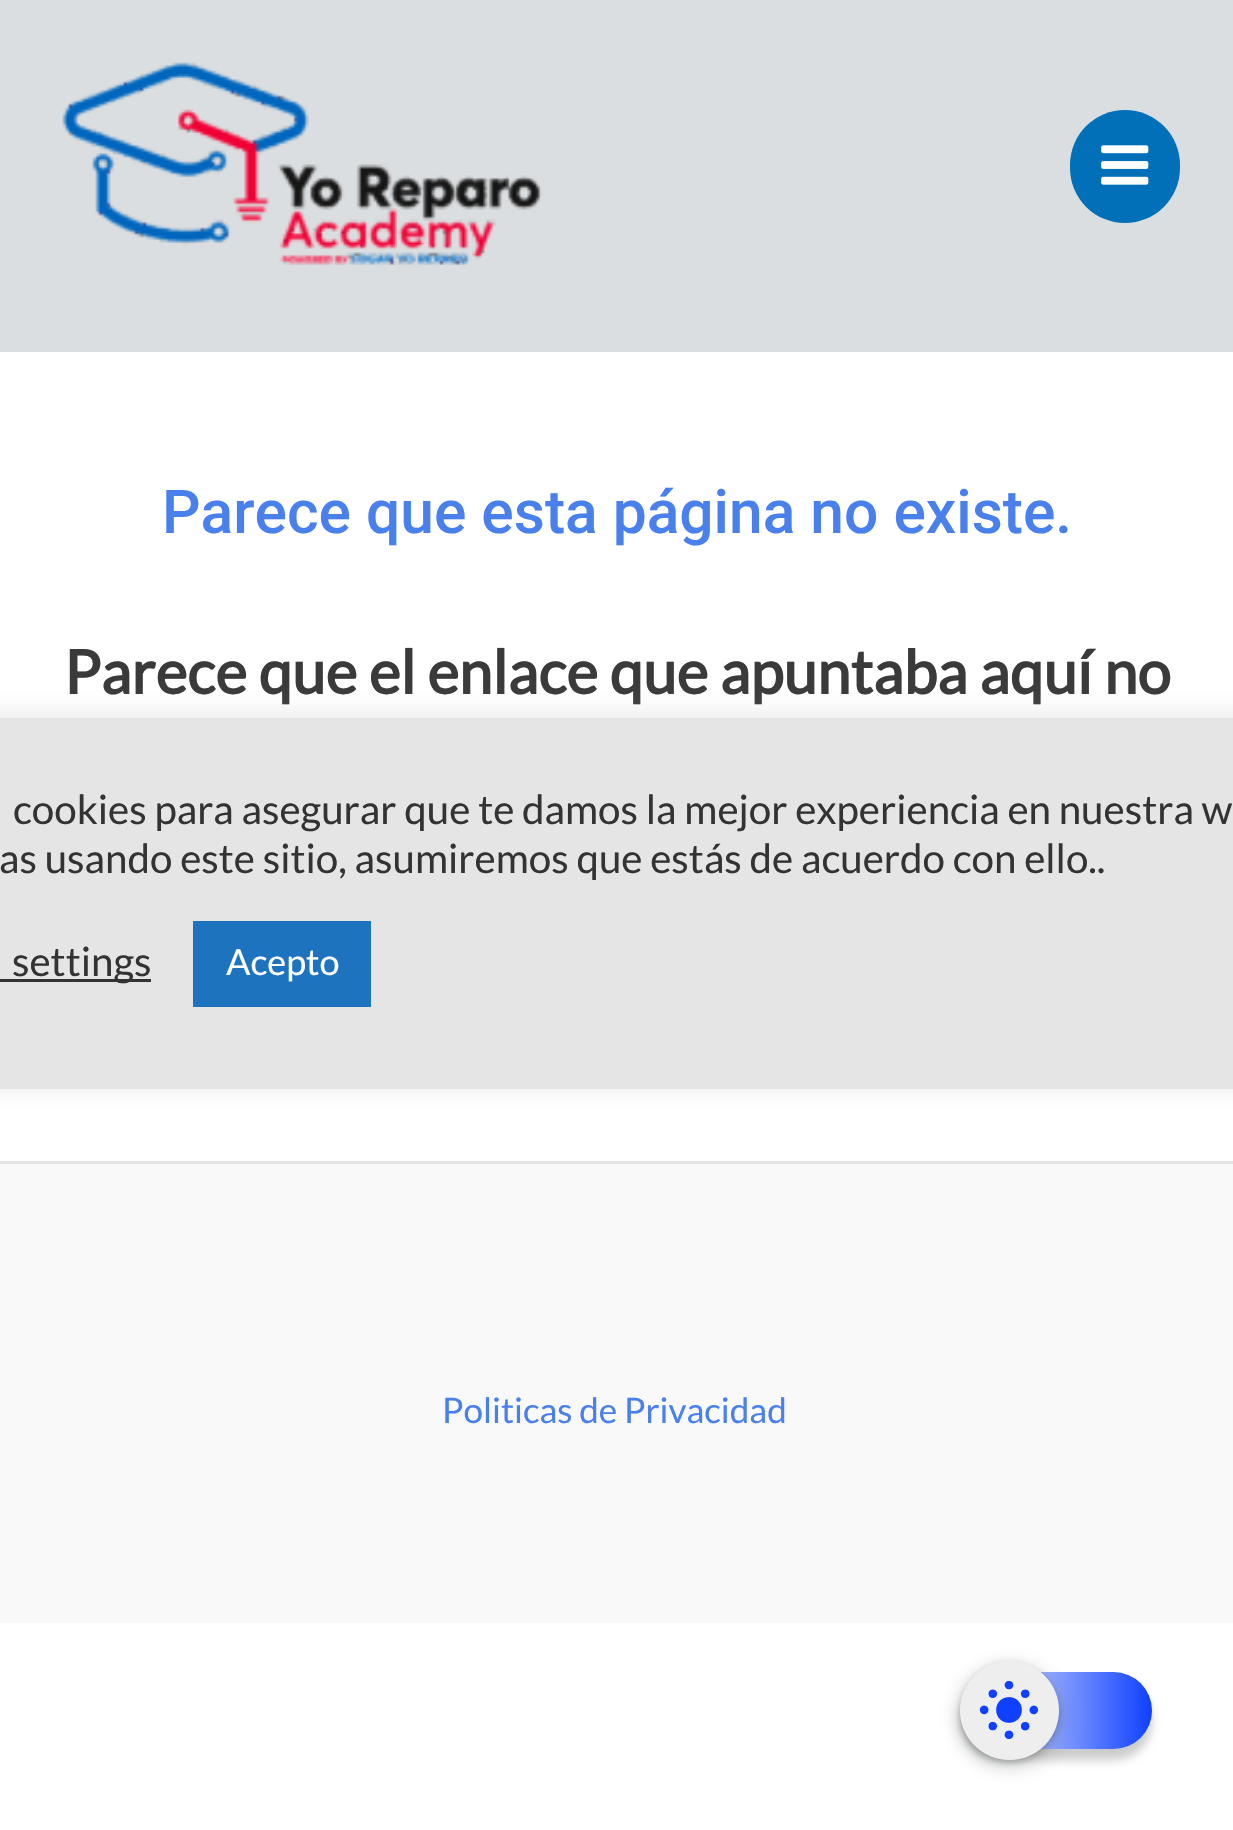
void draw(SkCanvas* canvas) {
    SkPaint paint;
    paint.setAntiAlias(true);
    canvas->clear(0xFFFFFFFF);
    paint.setColor(0xFFDBDEE0);
    canvas->drawRect(SkRect::MakeXYWH(0, 0, 1233, 352), paint);
    canvas->drawImageRect(SkImages::DeferredFromEncodedData(SkData::MakeFromFileName("img1.png")), SkRect::MakeXYWH(62, 62, 481, 203), SkSamplingOptions());
    paint.setColor(0xFF0170B9);
    canvas->drawRoundRect(SkRect::MakeXYWH(1070, 110, 110, 113), 55, 55, paint);
    canvas->drawImageRect(SkImages::DeferredFromEncodedData(SkData::MakeFromFileName("img2.png")), SkRect::MakeXYWH(1101, 145, 48, 40), SkSamplingOptions());
    SkFont font1(fontMgr->matchFamilyStyle("Roboto", SkFontStyle(500, SkFontStyle::kNormal_Width, SkFontStyle::kUpright_Slant)), 60.5f);
    font1.setSubpixel(true);
    paint.setColor(0xFF4A80EC);
    canvas->drawString("Parece que esta página no existe.", 162, 533, font1, paint);
    SkFont font2(fontMgr->matchFamilyStyle("Lato", SkFontStyle::Bold()), 60.2f);
    font2.setSubpixel(true);
    paint.setColor(0xFF3A3A3A);
    canvas->drawString("Parece que el enlace que apuntaba aquí no", 64, 694, font2, paint);
    paint.setColor(0xFFF9F9F9);
    canvas->drawRect(SkRect::MakeXYWH(0, 1164, 1233, 459), paint);
    paint.setColor(0xFFE5E5E5);
    canvas->drawRect(SkRect::MakeXYWH(0, 1161, 1233, 3), paint);
    SkFont font3(fontMgr->matchFamilyStyle("Lato", SkFontStyle::Normal()), 35.1f);
    font3.setSubpixel(true);
    paint.setColor(0xFF4A80EC);
    canvas->drawString("Politicas de Privacidad", 442, 1423, font3, paint);
    paint.setColor(0x4DACABAB);
    paint.setMaskFilter(SkMaskFilter::MakeBlur(kNormal_SkBlurStyle, 14));
    canvas->drawRoundRect(SkRect::MakeXYWH(-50, 715, 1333, 371), 8, 8, paint);
    paint.setMaskFilter(nullptr);
    paint.setColor(0xFFE5E5E5);
    canvas->drawRect(SkRect::MakeXYWH(0, 718, 1233, 371), paint);
    SkFont font4(fontMgr->matchFamilyStyle("Lato", SkFontStyle::Normal()), 40.3f);
    font4.setSubpixel(true);
    paint.setColor(0xFF333333);
    canvas->drawString("cookies para asegurar que te damos la mejor experiencia en nuestra w", 13, 824, font4, paint);
    canvas->drawString("as usando este sitio, asumiremos que estás de acuerdo con ello..", -1, 873, font4, paint);
    canvas->drawRect(SkRect::MakeXYWH(0, 979, 151, 3), paint);
    canvas->drawString("settings", 12, 976, font4, paint);
    paint.setColor(0xFF1E73BE);
    canvas->drawRect(SkRect::MakeXYWH(193, 921, 178, 86), paint);
    SkFont font5(fontMgr->matchFamilyStyle("Lato", SkFontStyle::Normal()), 36);
    font5.setSubpixel(true);
    paint.setColor(0xFFFFFFFF);
    canvas->drawString("Acepto", 226, 975, font5, paint);
    paint.setColor(0x33000000);
    paint.setMaskFilter(SkMaskFilter::MakeBlur(kNormal_SkBlurStyle, 5));
    canvas->drawRoundRect(SkRect::MakeXYWH(960, 1683, 192, 77), 38.5f, 38.5f, paint);
    paint.setMaskFilter(nullptr);
    {
        const SkColor colors[] = {0xFFFFFFFF, 0xFF0F40FF};
        const float stops[] = {0, 1};
        const SkPoint ends[] = {{960, 1711}, {1152, 1711}};
        paint.setShader(SkGradientShader::MakeLinear(ends, colors, stops, 2, SkTileMode::kClamp));
        paint.setAlpha(255);
    }
    canvas->drawRoundRect(SkRect::MakeXYWH(960, 1672, 192, 77), 38.5f, 38.5f, paint);
    paint.setShader(nullptr);
    paint.setColor(0x263C4043);
    paint.setMaskFilter(SkMaskFilter::MakeBlur(kNormal_SkBlurStyle, 8));
    canvas->drawRoundRect(SkRect::MakeXYWH(954, 1661, 110, 110), 55, 55, paint);
    paint.setMaskFilter(nullptr);
    paint.setColor(0x4D3C4043);
    paint.setMaskFilter(SkMaskFilter::MakeBlur(kNormal_SkBlurStyle, 3));
    canvas->drawRoundRect(SkRect::MakeXYWH(960, 1664, 99, 99), 49.5f, 49.5f, paint);
    paint.setMaskFilter(nullptr);
    paint.setColor(0xFFEEEEEE);
    canvas->drawCircle(1009.5f, 1710.5f, 49.5f, paint);
    canvas->drawImageRect(SkImages::DeferredFromEncodedData(SkData::MakeFromFileName("img3.png")), SkRect::MakeXYWH(980, 1681, 58, 58), SkSamplingOptions());
}
